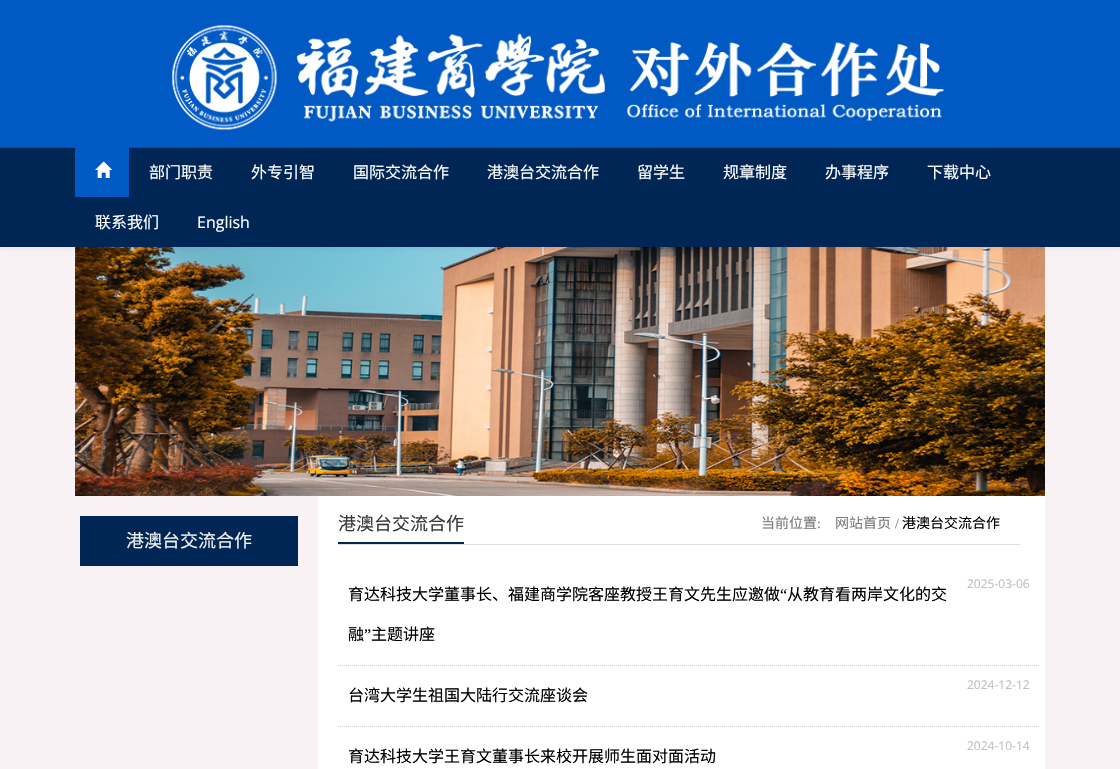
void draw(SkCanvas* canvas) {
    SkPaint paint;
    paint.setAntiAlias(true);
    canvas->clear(0xFFF8F2F4);
    canvas->drawImageRect(SkImages::DeferredFromEncodedData(SkData::MakeFromFileName("img3.png")), SkRect::MakeXYWH(75, 247, 970, 249), SkSamplingOptions());
    paint.setColor(0x12000000);
    paint.setMaskFilter(SkMaskFilter::MakeBlur(kNormal_SkBlurStyle, 2.5f));
    canvas->drawRect(SkRect::MakeXYWH(0, 148, 1120, 100), paint);
    paint.setMaskFilter(nullptr);
    paint.setColor(0xFF0159C3);
    canvas->drawRect(SkRect::MakeXYWH(0, 0, 1120, 147), paint);
    canvas->drawImageRect(SkImages::DeferredFromEncodedData(SkData::MakeFromFileName("img1.png")), SkRect::MakeXYWH(172, 25, 772, 105), SkSamplingOptions());
    paint.setColor(0xFF002655);
    canvas->drawRect(SkRect::MakeXYWH(0, 148, 1120, 99), paint);
    paint.setColor(0xFF26476F);
    canvas->drawRect(SkRect::MakeXYWH(0, 147, 1120, 1), paint);
    paint.setColor(0xFF0159C3);
    canvas->drawRect(SkRect::MakeXYWH(75, 147, 54, 50), paint);
    canvas->drawImageRect(SkImages::DeferredFromEncodedData(SkData::MakeFromFileName("img2.png")), SkRect::MakeXYWH(95, 161, 18, 17), SkSamplingOptions());
    SkFont font1(fontMgr->matchFamilyStyle("Noto Sans CJK SC", SkFontStyle::Normal()), 16);
    font1.setSubpixel(true);
    paint.setColor(0xFFFFFFFF);
    canvas->drawString("部门职责", 149, 178, font1, paint);
    canvas->drawString("外专引智", 251, 178, font1, paint);
    canvas->drawString("国际交流合作", 353, 178, font1, paint);
    canvas->drawString("港澳台交流合作", 487, 178, font1, paint);
    canvas->drawString("留学生", 637, 178, font1, paint);
    canvas->drawString("规章制度", 723, 178, font1, paint);
    canvas->drawString("办事程序", 825, 178, font1, paint);
    canvas->drawString("下载中心", 927, 178, font1, paint);
    canvas->drawString("联系我们", 95, 228, font1, paint);
    SkFont font2(fontMgr->matchFamilyStyle("Open Sans", SkFontStyle::Normal()), 16);
    font2.setSubpixel(true);
    canvas->drawString("English", 197, 228, font2, paint);
    paint.setColor(0xFF002655);
    canvas->drawRect(SkRect::MakeXYWH(80, 516, 218, 50), paint);
    SkFont font3(fontMgr->matchFamilyStyle("Noto Sans CJK SC", SkFontStyle::Normal()), 18);
    font3.setSubpixel(true);
    paint.setColor(0xFFF2F2F2);
    canvas->drawString("港澳台交流合作", 126, 547, font3, paint);
    paint.setColor(0xFFFFFFFF);
    canvas->drawRect(SkRect::MakeXYWH(318, 496, 727, 273), paint);
    paint.setColor(0xFFDDDDDD);
    canvas->drawRect(SkRect::MakeXYWH(338, 544, 682, 1), paint);
    paint.setColor(0xFF002655);
    canvas->drawRect(SkRect::MakeXYWH(338, 542, 126, 2), paint);
    paint.setColor(0xFF383838);
    canvas->drawString("港澳台交流合作", 338, 530, font3, paint);
    SkFont font4(fontMgr->matchFamilyStyle("Noto Sans CJK SC", SkFontStyle::Normal()), 14);
    font4.setSubpixel(true);
    paint.setColor(0xFF7A7A7A);
    canvas->drawString("当前位置", 761, 528, font4, paint);
    SkFont font5(fontMgr->matchFamilyStyle("Liberation Serif", SkFontStyle::Normal()), 14);
    font5.setSubpixel(true);
    canvas->drawString(":", 817, 528, font5, paint);
    canvas->drawString("网站首页", 835, 528, font4, paint);
    canvas->drawString("/", 895, 528, font5, paint);
    paint.setColor(0xFF000000);
    canvas->drawString("港澳台交流合作", 902, 528, font4, paint);
    paint.setStyle(SkPaint::kStroke_Style);
    paint.setStrokeWidth(1);
    paint.setColor(0xFFCCCCCC);
    paint.setPathEffect(SkDashPathEffect::Make({{1, 1}}, 0));
    canvas->drawPath(SkPathBuilder().moveTo(338, 665.5f).lineTo(1040, 665.5f).detach(), paint);
    paint.setPathEffect(nullptr);
    SkFont font6(fontMgr->matchFamilyStyle("Open Sans", SkFontStyle::Normal()), 12);
    font6.setSubpixel(true);
    paint.setStyle(SkPaint::kFill_Style);
    paint.setColor(0xFFC0C0C0);
    canvas->drawString("2025-03-06", 967, 588, font6, paint);
    paint.setColor(0xFF000000);
    canvas->drawString("育达科技大学董事长、福建商学院客座教授王育文先生应邀做", 348, 600, font1, paint);
    SkFont font7(fontMgr->matchFamilyStyle("Liberation Serif", SkFontStyle::Normal()), 16);
    font7.setSubpixel(true);
    canvas->drawString("“", 780, 600, font7, paint);
    canvas->drawString("从教育看两岸文化的交", 787, 600, font1, paint);
    canvas->drawString("融", 348, 640, font1, paint);
    canvas->drawString("”", 364, 640, font7, paint);
    canvas->drawString("主题讲座", 371, 640, font1, paint);
    paint.setStyle(SkPaint::kStroke_Style);
    paint.setColor(0xFFCCCCCC);
    paint.setPathEffect(SkDashPathEffect::Make({{1, 1}}, 0));
    canvas->drawPath(SkPathBuilder().moveTo(338, 726.5f).lineTo(1040, 726.5f).detach(), paint);
    paint.setPathEffect(nullptr);
    paint.setStyle(SkPaint::kFill_Style);
    paint.setColor(0xFFC0C0C0);
    canvas->drawString("2024-12-12", 967, 689, font6, paint);
    paint.setColor(0xFF000000);
    canvas->drawString("台湾大学生祖国大陆行交流座谈会", 348, 701, font1, paint);
    paint.setColor(0xFFC0C0C0);
    canvas->drawString("2024-10-14", 967, 750, font6, paint);
    paint.setColor(0xFF000000);
    canvas->drawString("育达科技大学王育文董事长来校开展师生面对面活动", 348, 762, font1, paint);
}
